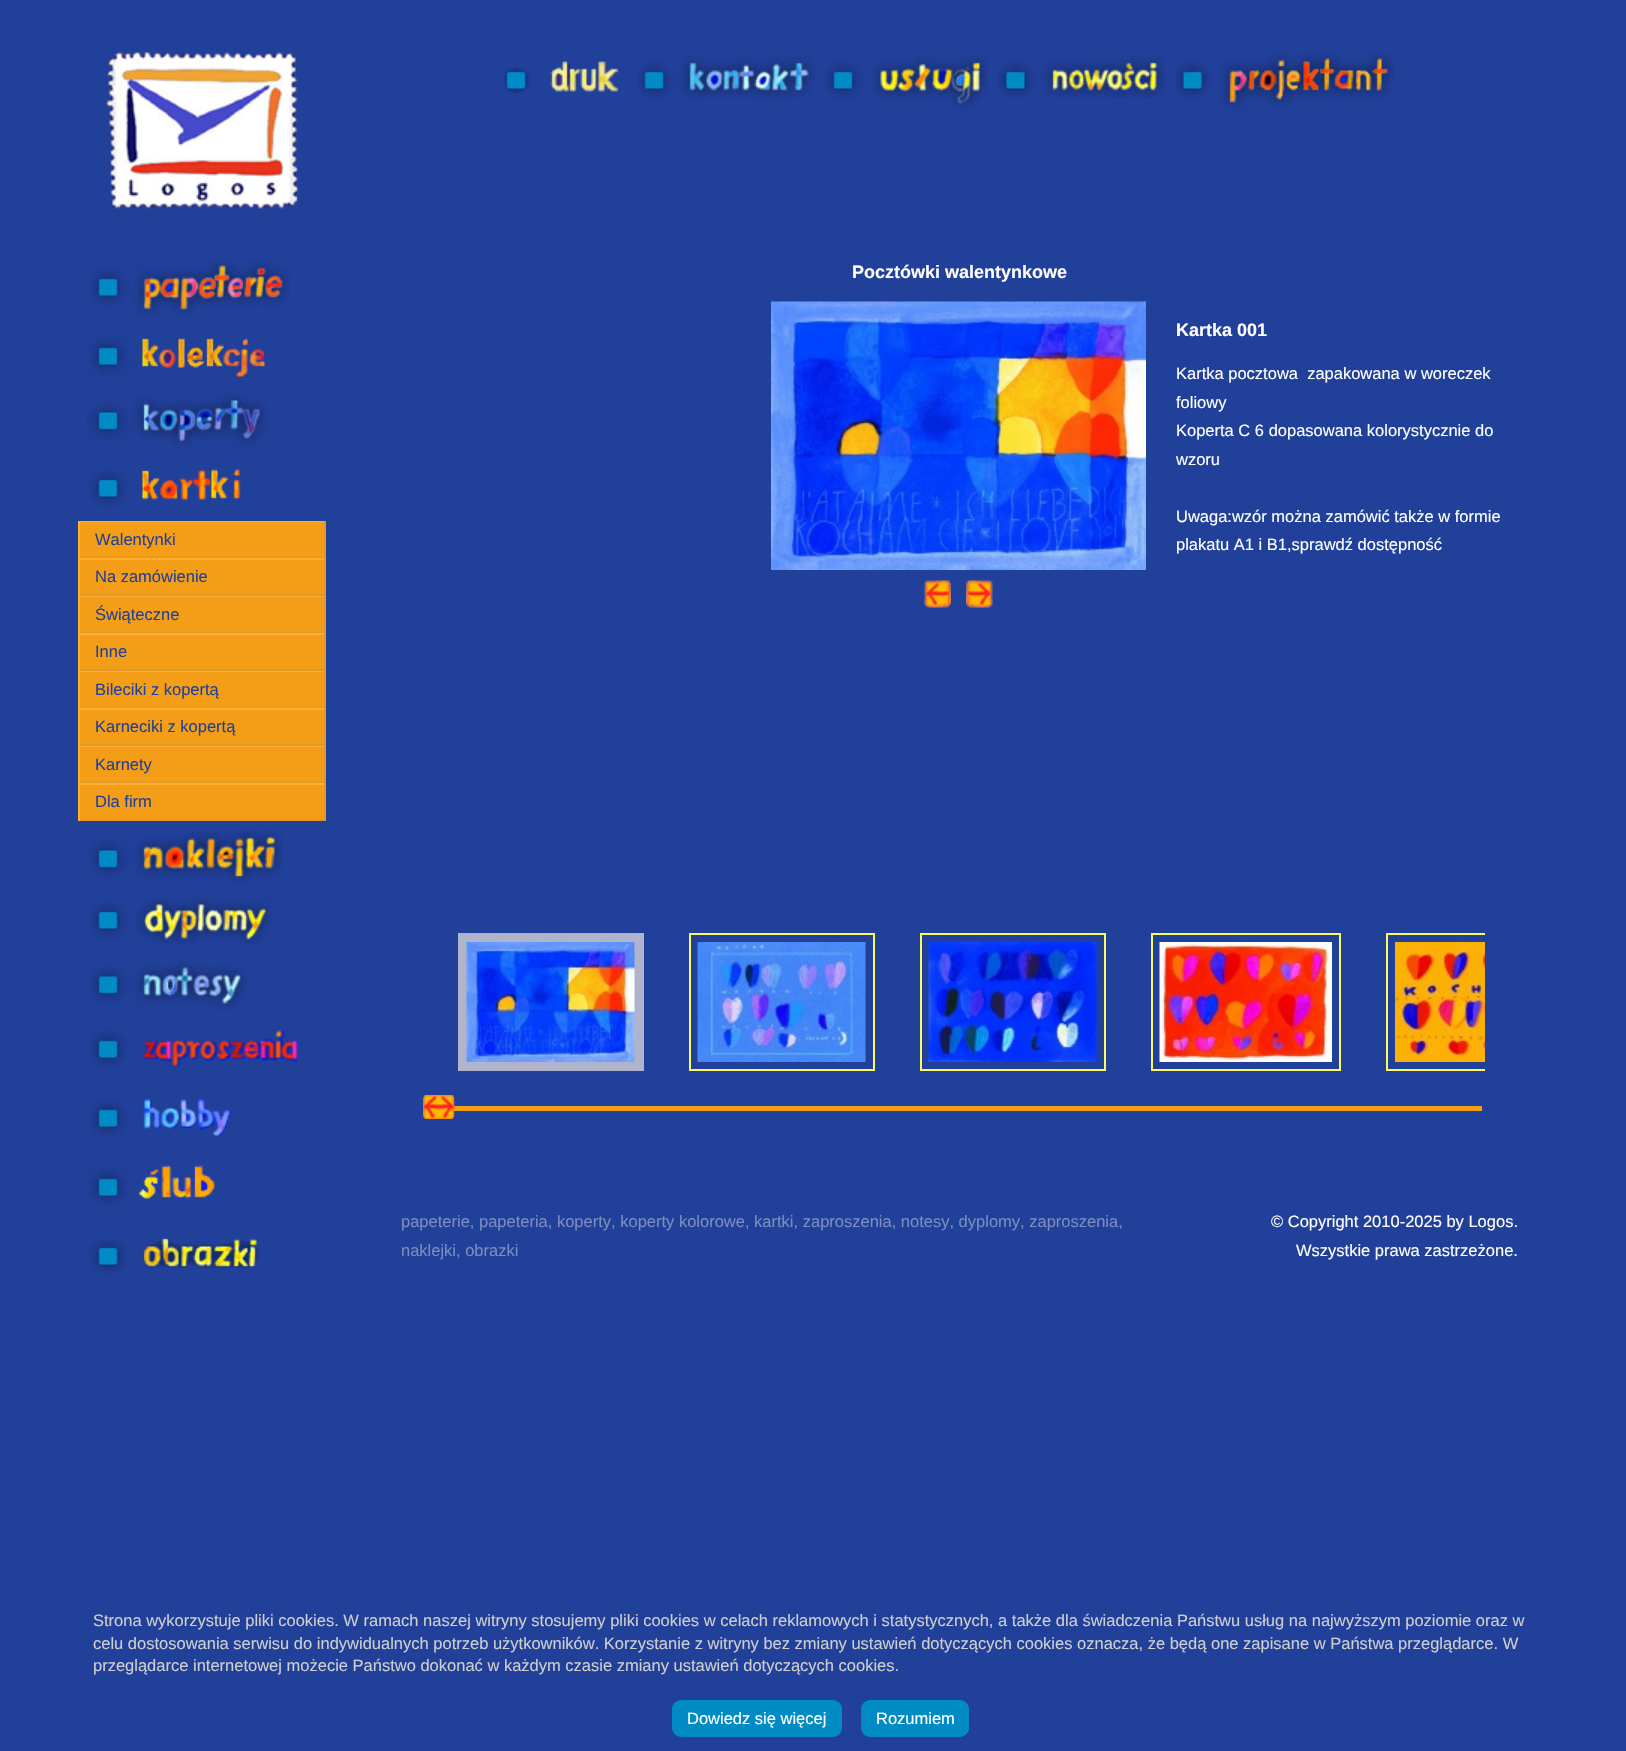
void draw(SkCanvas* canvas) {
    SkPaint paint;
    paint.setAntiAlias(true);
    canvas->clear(0xFF21409A);
    canvas->drawImageRect(SkImages::DeferredFromEncodedData(SkData::MakeFromFileName("img1.png")), SkRect::MakeXYWH(105, 52, 194, 158), SkSamplingOptions());
    canvas->drawImageRect(SkImages::DeferredFromEncodedData(SkData::MakeFromFileName("img2.png")), SkRect::MakeXYWH(89, 259, 201, 57), SkSamplingOptions());
    canvas->drawImageRect(SkImages::DeferredFromEncodedData(SkData::MakeFromFileName("img3.png")), SkRect::MakeXYWH(90, 337, 176, 42), SkSamplingOptions());
    canvas->drawImageRect(SkImages::DeferredFromEncodedData(SkData::MakeFromFileName("img4.png")), SkRect::MakeXYWH(86, 393, 182, 55), SkSamplingOptions());
    canvas->drawImageRect(SkImages::DeferredFromEncodedData(SkData::MakeFromFileName("img5.png")), SkRect::MakeXYWH(87, 469, 155, 38), SkSamplingOptions());
    paint.setColor(0xFFFFAE2F);
    canvas->drawRect(SkRect::MakeXYWH(78, 521, 248, 1), paint);
    paint.setColor(0xFFDF9829);
    canvas->drawRect(SkRect::MakeXYWH(324, 521, 2, 37), paint);
    canvas->drawRect(SkRect::MakeXYWH(78, 557, 248, 1), paint);
    paint.setColor(0xFFFFAE2F);
    canvas->drawRect(SkRect::MakeXYWH(78, 521, 2, 37), paint);
    paint.setColor(0xFFF49E17);
    canvas->drawRect(SkRect::MakeXYWH(80, 522, 244, 35), paint);
    SkFont font1(fontMgr->matchFamilyStyle("Liberation Sans", SkFontStyle::Normal()), 16.5f);
    font1.setSubpixel(true);
    paint.setColor(0xFF21409A);
    canvas->drawString("Walentynki", 95, 545, font1, paint);
    paint.setColor(0xFFFFAE2F);
    canvas->drawRect(SkRect::MakeXYWH(78, 558, 248, 2), paint);
    paint.setColor(0xFFDF9829);
    canvas->drawRect(SkRect::MakeXYWH(324, 558, 2, 38), paint);
    canvas->drawRect(SkRect::MakeXYWH(78, 594, 248, 2), paint);
    paint.setColor(0xFFFFAE2F);
    canvas->drawRect(SkRect::MakeXYWH(78, 558, 2, 38), paint);
    paint.setColor(0xFFF49E17);
    canvas->drawRect(SkRect::MakeXYWH(80, 560, 244, 34), paint);
    paint.setColor(0xFF21409A);
    canvas->drawString("Na zamówienie", 95, 582, font1, paint);
    paint.setColor(0xFFFFAE2F);
    canvas->drawRect(SkRect::MakeXYWH(78, 596, 248, 1), paint);
    paint.setColor(0xFFDF9829);
    canvas->drawRect(SkRect::MakeXYWH(324, 596, 2, 37), paint);
    canvas->drawRect(SkRect::MakeXYWH(78, 632, 248, 1), paint);
    paint.setColor(0xFFFFAE2F);
    canvas->drawRect(SkRect::MakeXYWH(78, 596, 2, 37), paint);
    paint.setColor(0xFFF49E17);
    canvas->drawRect(SkRect::MakeXYWH(80, 597, 244, 35), paint);
    paint.setColor(0xFF21409A);
    canvas->drawString("Świąteczne", 95, 620, font1, paint);
    paint.setColor(0xFFFFAE2F);
    canvas->drawRect(SkRect::MakeXYWH(78, 633, 248, 2), paint);
    paint.setColor(0xFFDF9829);
    canvas->drawRect(SkRect::MakeXYWH(324, 633, 2, 38), paint);
    canvas->drawRect(SkRect::MakeXYWH(78, 669, 248, 2), paint);
    paint.setColor(0xFFFFAE2F);
    canvas->drawRect(SkRect::MakeXYWH(78, 633, 2, 38), paint);
    paint.setColor(0xFFF49E17);
    canvas->drawRect(SkRect::MakeXYWH(80, 635, 244, 34), paint);
    paint.setColor(0xFF21409A);
    canvas->drawString("Inne", 95, 657, font1, paint);
    paint.setColor(0xFFFFAE2F);
    canvas->drawRect(SkRect::MakeXYWH(78, 671, 248, 1), paint);
    paint.setColor(0xFFDF9829);
    canvas->drawRect(SkRect::MakeXYWH(324, 671, 2, 37), paint);
    canvas->drawRect(SkRect::MakeXYWH(78, 707, 248, 1), paint);
    paint.setColor(0xFFFFAE2F);
    canvas->drawRect(SkRect::MakeXYWH(78, 671, 2, 37), paint);
    paint.setColor(0xFFF49E17);
    canvas->drawRect(SkRect::MakeXYWH(80, 672, 244, 35), paint);
    paint.setColor(0xFF21409A);
    canvas->drawString("Bileciki z kopertą", 95, 695, font1, paint);
    paint.setColor(0xFFFFAE2F);
    canvas->drawRect(SkRect::MakeXYWH(78, 708, 248, 2), paint);
    paint.setColor(0xFFDF9829);
    canvas->drawRect(SkRect::MakeXYWH(324, 708, 2, 38), paint);
    canvas->drawRect(SkRect::MakeXYWH(78, 744, 248, 2), paint);
    paint.setColor(0xFFFFAE2F);
    canvas->drawRect(SkRect::MakeXYWH(78, 708, 2, 38), paint);
    paint.setColor(0xFFF49E17);
    canvas->drawRect(SkRect::MakeXYWH(80, 710, 244, 34), paint);
    paint.setColor(0xFF21409A);
    canvas->drawString("Karneciki z kopertą", 95, 732, font1, paint);
    paint.setColor(0xFFFFAE2F);
    canvas->drawRect(SkRect::MakeXYWH(78, 746, 248, 1), paint);
    paint.setColor(0xFFDF9829);
    canvas->drawRect(SkRect::MakeXYWH(324, 746, 2, 37), paint);
    canvas->drawRect(SkRect::MakeXYWH(78, 782, 248, 1), paint);
    paint.setColor(0xFFFFAE2F);
    canvas->drawRect(SkRect::MakeXYWH(78, 746, 2, 37), paint);
    paint.setColor(0xFFF49E17);
    canvas->drawRect(SkRect::MakeXYWH(80, 747, 244, 35), paint);
    paint.setColor(0xFF21409A);
    canvas->drawString("Karnety", 95, 770, font1, paint);
    paint.setColor(0xFFFFAE2F);
    canvas->drawRect(SkRect::MakeXYWH(78, 783, 248, 2), paint);
    paint.setColor(0xFFDF9829);
    canvas->drawRect(SkRect::MakeXYWH(324, 783, 2, 38), paint);
    canvas->drawRect(SkRect::MakeXYWH(78, 819, 248, 2), paint);
    paint.setColor(0xFFFFAE2F);
    canvas->drawRect(SkRect::MakeXYWH(78, 783, 2, 38), paint);
    paint.setColor(0xFFF49E17);
    canvas->drawRect(SkRect::MakeXYWH(80, 785, 244, 34), paint);
    paint.setColor(0xFF21409A);
    canvas->drawString("Dla firm", 95, 807, font1, paint);
    canvas->drawImageRect(SkImages::DeferredFromEncodedData(SkData::MakeFromFileName("img6.png")), SkRect::MakeXYWH(89, 830, 194, 54), SkSamplingOptions());
    canvas->drawImageRect(SkImages::DeferredFromEncodedData(SkData::MakeFromFileName("img7.png")), SkRect::MakeXYWH(89, 898, 183, 48), SkSamplingOptions());
    canvas->drawImageRect(SkImages::DeferredFromEncodedData(SkData::MakeFromFileName("img8.png")), SkRect::MakeXYWH(89, 961, 158, 49), SkSamplingOptions());
    canvas->drawImageRect(SkImages::DeferredFromEncodedData(SkData::MakeFromFileName("img9.png")), SkRect::MakeXYWH(89, 1017, 209, 65), SkSamplingOptions());
    canvas->drawImageRect(SkImages::DeferredFromEncodedData(SkData::MakeFromFileName("img10.png")), SkRect::MakeXYWH(89, 1099, 143, 38), SkSamplingOptions());
    canvas->drawImageRect(SkImages::DeferredFromEncodedData(SkData::MakeFromFileName("img11.png")), SkRect::MakeXYWH(88, 1165, 127, 41), SkSamplingOptions());
    canvas->drawImageRect(SkImages::DeferredFromEncodedData(SkData::MakeFromFileName("img12.png")), SkRect::MakeXYWH(88, 1238, 172, 37), SkSamplingOptions());
    canvas->drawImageRect(SkImages::DeferredFromEncodedData(SkData::MakeFromFileName("img13.png")), SkRect::MakeXYWH(504, 61, 115, 32), SkSamplingOptions());
    canvas->drawImageRect(SkImages::DeferredFromEncodedData(SkData::MakeFromFileName("img14.png")), SkRect::MakeXYWH(637, 56, 178, 43), SkSamplingOptions());
    canvas->drawImageRect(SkImages::DeferredFromEncodedData(SkData::MakeFromFileName("img15.png")), SkRect::MakeXYWH(824, 56, 164, 54), SkSamplingOptions());
    canvas->drawImageRect(SkImages::DeferredFromEncodedData(SkData::MakeFromFileName("img16.png")), SkRect::MakeXYWH(997, 56, 168, 42), SkSamplingOptions());
    canvas->drawImageRect(SkImages::DeferredFromEncodedData(SkData::MakeFromFileName("img17.png")), SkRect::MakeXYWH(1175, 53, 220, 57), SkSamplingOptions());
    SkFont font2(fontMgr->matchFamilyStyle("Liberation Sans", SkFontStyle::Bold()), 18);
    font2.setSubpixel(true);
    paint.setColor(0xFFFFFFFF);
    canvas->drawString("Pocztówki walentynkowe", 852, 278, font2, paint);
    canvas->drawImageRect(SkImages::DeferredFromEncodedData(SkData::MakeFromFileName("img18.png")), SkRect::MakeXYWH(771, 301, 375, 269), SkSamplingOptions());
    canvas->drawImageRect(SkImages::DeferredFromEncodedData(SkData::MakeFromFileName("img19.png")), SkRect::MakeXYWH(924, 580, 27, 28), SkSamplingOptions());
    canvas->drawImageRect(SkImages::DeferredFromEncodedData(SkData::MakeFromFileName("img20.png")), SkRect::MakeXYWH(966, 580, 27, 28), SkSamplingOptions());
    canvas->drawString("Kartka 001", 1176, 336, font2, paint);
    canvas->drawString("Kartka pocztowa  zapakowana w woreczek", 1176, 379, font1, paint);
    canvas->drawString("foliowy", 1176, 408, font1, paint);
    canvas->drawString("Koperta C 6 dopasowana kolorystycznie do", 1176, 436, font1, paint);
    canvas->drawString("wzoru", 1176, 465, font1, paint);
    canvas->drawString("Uwaga:wzór można zamówić także w formie", 1176, 522, font1, paint);
    canvas->drawString("plakatu A1 i B1,sprawdź dostępność", 1176, 550, font1, paint);
    paint.setColor(0xFFAFB3CC);
    canvas->drawRect(SkRect::MakeXYWH(458, 933, 186, 138), paint);
    canvas->drawImageRect(SkImages::DeferredFromEncodedData(SkData::MakeFromFileName("img21.png")), SkRect::MakeXYWH(466, 942, 169, 120), SkSamplingOptions());
    paint.setStyle(SkPaint::kStroke_Style);
    paint.setStrokeWidth(2);
    paint.setColor(0xFFFBFA63);
    canvas->drawRect(SkRect::MakeXYWH(690, 934, 184, 136), paint);
    canvas->drawImageRect(SkImages::DeferredFromEncodedData(SkData::MakeFromFileName("img22.png")), SkRect::MakeXYWH(697, 942, 169, 120), SkSamplingOptions());
    canvas->drawRect(SkRect::MakeXYWH(921, 934, 184, 136), paint);
    canvas->drawImageRect(SkImages::DeferredFromEncodedData(SkData::MakeFromFileName("img23.png")), SkRect::MakeXYWH(928, 942, 169, 120), SkSamplingOptions());
    canvas->drawRect(SkRect::MakeXYWH(1152, 934, 188, 136), paint);
    canvas->drawImageRect(SkImages::DeferredFromEncodedData(SkData::MakeFromFileName("img24.png")), SkRect::MakeXYWH(1159, 942, 173, 120), SkSamplingOptions());
    canvas->save();
    canvas->clipRect(SkRect::MakeXYWH(435, 933, 1050, 144));
    canvas->drawRect(SkRect::MakeXYWH(1387, 934, 186, 136), paint);
    canvas->restore();
    canvas->drawImageRect(SkImages::DeferredFromEncodedData(SkData::MakeFromFileName("img25.png")), SkRect::MakeXYWH(1395, 942, 90, 120), SkSamplingOptions());
    paint.setStyle(SkPaint::kFill_Style);
    paint.setColor(0xFFF49E17);
    canvas->drawRect(SkRect::MakeXYWH(454, 1106, 1028, 5), paint);
    canvas->drawImageRect(SkImages::DeferredFromEncodedData(SkData::MakeFromFileName("img26.png")), SkRect::MakeXYWH(423, 1095, 32, 24), SkSamplingOptions());
    paint.setColor(0xFF7A8DBE);
    canvas->drawString("papeterie, papeteria, koperty, koperty kolorowe, kartki, zaproszenia, notesy, dyplomy, zaproszenia,", 401, 1227, font1, paint);
    canvas->drawString("naklejki, obrazki", 401, 1256, font1, paint);
    paint.setColor(0xFFFFFFFF);
    canvas->drawString("© Copyright 2010-2025 by Logos.", 1271, 1227, font1, paint);
    canvas->drawString("Wszystkie prawa zastrzeżone.", 1296, 1256, font1, paint);
    paint.setColor(0xFFCECECE);
    canvas->drawString("Strona wykorzystuje pliki cookies. W ramach naszej witryny stosujemy pliki cookies w celach reklamowych i statystycznych, a także dla świadczenia Państwu usług na najwyższym poziomie oraz w", 93, 1626, font1, paint);
    canvas->drawString("celu dostosowania serwisu do indywidualnych potrzeb użytkowników. Korzystanie z witryny bez zmiany ustawień dotyczących cookies oznacza, że będą one zapisane w Państwa przeglądarce. W", 93, 1649, font1, paint);
    canvas->drawString("przeglądarce internetowej możecie Państwo dokonać w każdym czasie zmiany ustawień dotyczących cookies.", 93, 1671, font1, paint);
    paint.setColor(0xFF008BC5);
    canvas->drawRoundRect(SkRect::MakeXYWH(672, 1700, 170, 37), 9, 9, paint);
    paint.setColor(0xFFFFFFFF);
    canvas->drawString("Dowiedz się więcej", 687, 1724, font1, paint);
    paint.setColor(0xFF008BC5);
    canvas->drawRoundRect(SkRect::MakeXYWH(861, 1700, 108, 37), 9, 9, paint);
    paint.setColor(0xFFFFFFFF);
    canvas->drawString("Rozumiem", 876, 1724, font1, paint);
}
